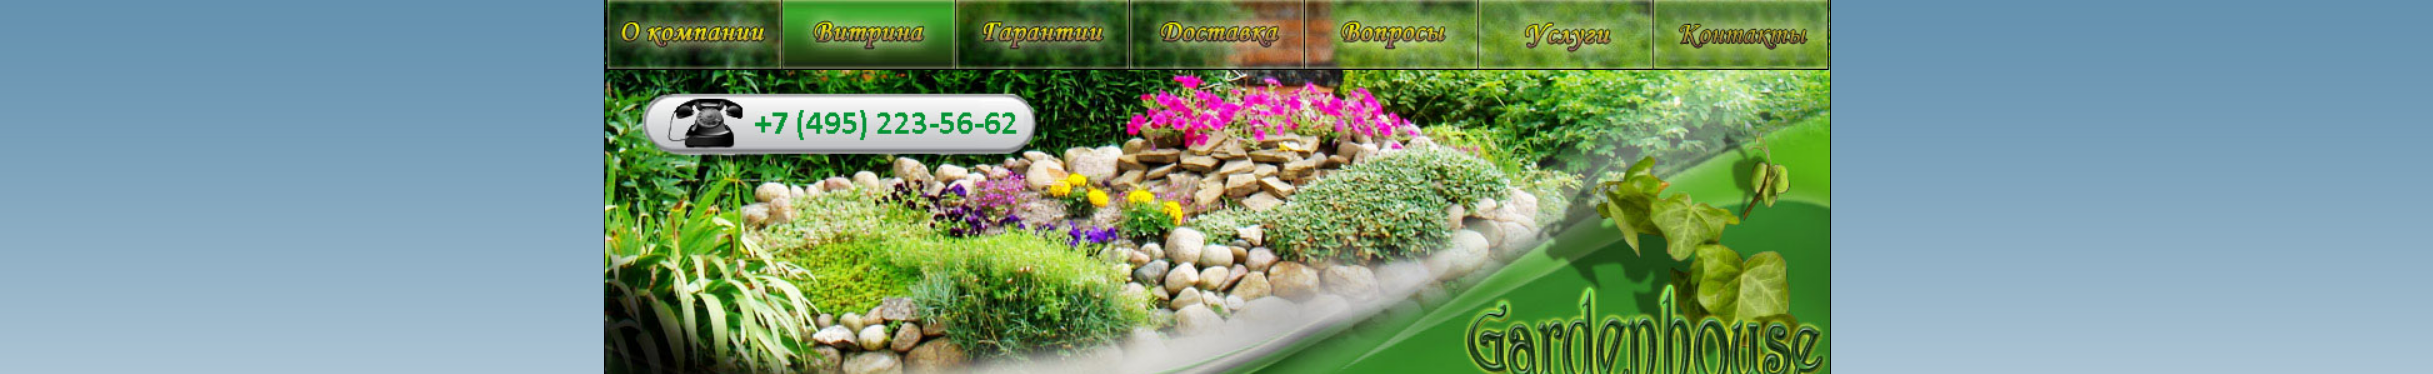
void draw(SkCanvas* canvas) {
    SkPaint paint;
    paint.setAntiAlias(true);
    canvas->clear(0xFFFFFFFF);
    canvas->drawImageRect(SkImages::DeferredFromEncodedData(SkData::MakeFromFileName("img1.png")), SkRect::MakeXYWH(0, 0, 2433, 374), SkSamplingOptions());
    paint.setColor(0xFF000000);
    canvas->drawRect(SkRect::MakeXYWH(1830, 0, 1, 374), paint);
    canvas->drawRect(SkRect::MakeXYWH(604, 0, 1, 374), paint);
    canvas->drawImageRect(SkImages::DeferredFromEncodedData(SkData::MakeFromFileName("img2.png")), SkRect::MakeXYWH(605, 0, 1225, 374), SkSamplingOptions());
    canvas->drawImageRect(SkImages::DeferredFromEncodedData(SkData::MakeFromFileName("img3.png")), SkRect::MakeXYWH(606, 0, 177, 70), SkSamplingOptions());
    canvas->drawImageRect(SkImages::DeferredFromEncodedData(SkData::MakeFromFileName("img4.png")), SkRect::MakeXYWH(782, 0, 175, 70), SkSamplingOptions());
    canvas->drawImageRect(SkImages::DeferredFromEncodedData(SkData::MakeFromFileName("img5.png")), SkRect::MakeXYWH(956, 0, 174, 70), SkSamplingOptions());
    canvas->drawImageRect(SkImages::DeferredFromEncodedData(SkData::MakeFromFileName("img6.png")), SkRect::MakeXYWH(1130, 0, 175, 70), SkSamplingOptions());
    canvas->drawImageRect(SkImages::DeferredFromEncodedData(SkData::MakeFromFileName("img7.png")), SkRect::MakeXYWH(1305, 0, 174, 70), SkSamplingOptions());
    canvas->drawImageRect(SkImages::DeferredFromEncodedData(SkData::MakeFromFileName("img8.png")), SkRect::MakeXYWH(1478, 0, 176, 70), SkSamplingOptions());
    canvas->drawImageRect(SkImages::DeferredFromEncodedData(SkData::MakeFromFileName("img9.png")), SkRect::MakeXYWH(1653, 0, 176, 70), SkSamplingOptions());
}
